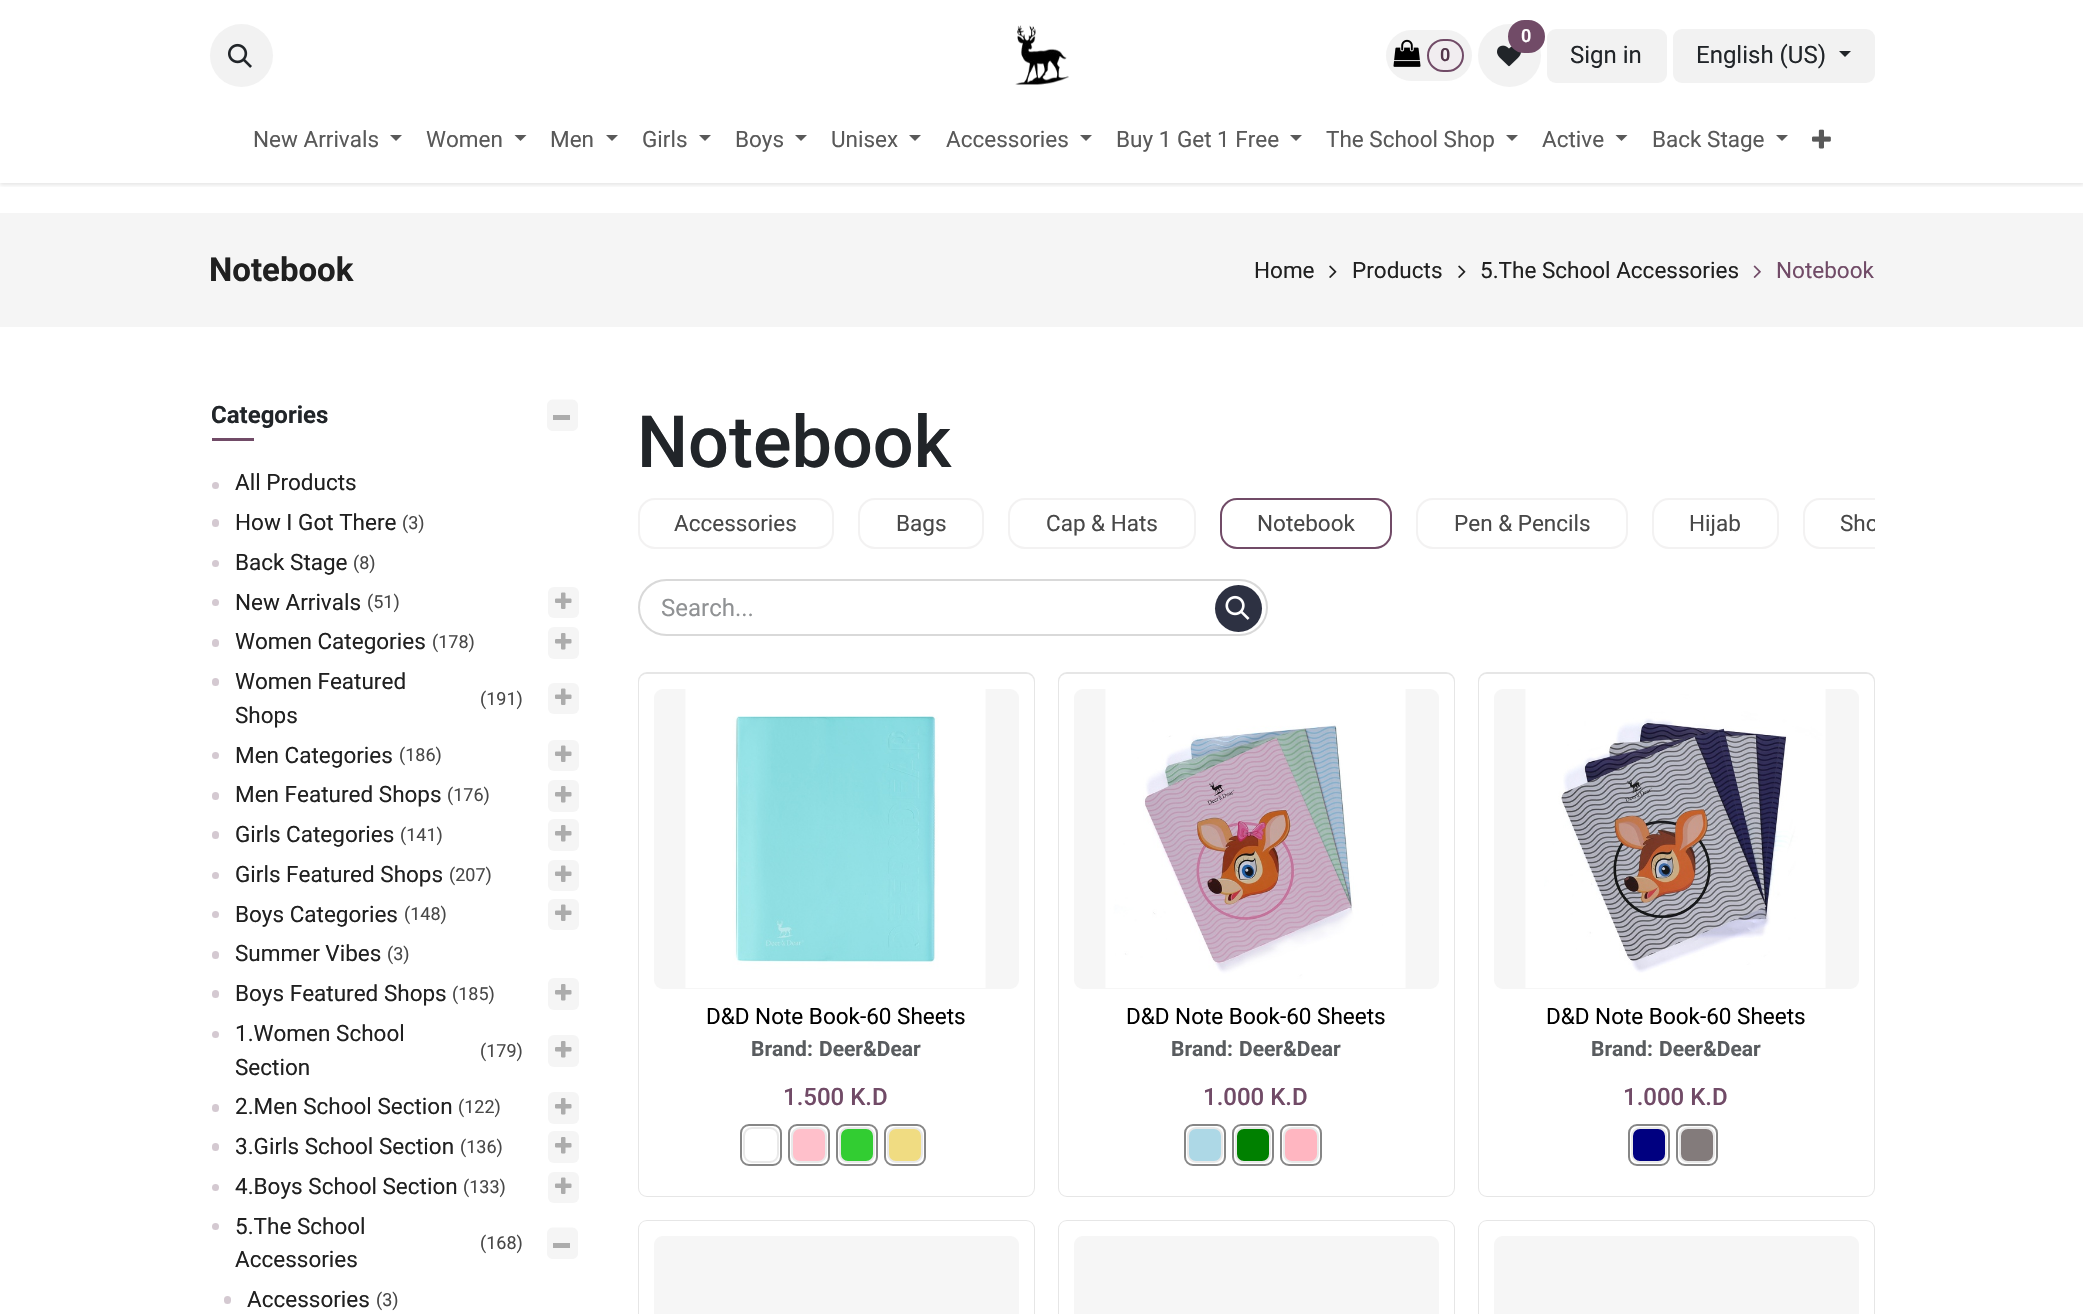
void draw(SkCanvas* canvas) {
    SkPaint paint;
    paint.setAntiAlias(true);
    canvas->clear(0xFFFFFFFF);
    canvas->save();
    canvas->clipRect(SkRect::MakeXYWH(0, 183, 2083, 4));
    paint.setColor(0x1A000000);
    paint.setMaskFilter(SkMaskFilter::MakeBlur(kNormal_SkBlurStyle, 2));
    canvas->drawRect(SkRect::MakeXYWH(0, 2, 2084, 183), paint);
    paint.setMaskFilter(nullptr);
    canvas->restore();
    paint.setColor(0xFFF2F2F2);
    canvas->drawCircle(241.5f, 55.5f, 31.5f, paint);
    canvas->drawImageRect(SkImages::DeferredFromEncodedData(SkData::MakeFromFileName("img1.png")), SkRect::MakeXYWH(228, 43, 24, 25), SkSamplingOptions());
    canvas->drawImageRect(SkImages::DeferredFromEncodedData(SkData::MakeFromFileName("img2.png")), SkRect::MakeXYWH(1015, 25, 54, 60), SkSamplingOptions());
    canvas->drawCircle(1509.5f, 55.5f, 31.5f, paint);
    canvas->drawImageRect(SkImages::DeferredFromEncodedData(SkData::MakeFromFileName("img3.png")), SkRect::MakeXYWH(1497, 45, 24, 22), SkSamplingOptions());
    paint.setColor(0xFF714B67);
    canvas->drawRoundRect(SkRect::MakeXYWH(1509, 21, 35, 31), 15.5f, 15.5f, paint);
    paint.setStyle(SkPaint::kStroke_Style);
    paint.setStrokeWidth(2);
    canvas->drawRoundRect(SkRect::MakeXYWH(1509, 21, 35, 31), 15.5f, 15.5f, paint);
    SkFont font1(fontMgr->matchFamilyStyle("Roboto", SkFontStyle(600, SkFontStyle::kNormal_Width, SkFontStyle::kUpright_Slant)), 18);
    font1.setSubpixel(true);
    paint.setStyle(SkPaint::kFill_Style);
    paint.setColor(0xFFFFFFFF);
    canvas->drawString("0", 1521, 42, font1, paint);
    paint.setColor(0xFFF2F2F2);
    canvas->drawRoundRect(SkRect::MakeXYWH(1386, 30, 86, 51), 25.5f, 25.5f, paint);
    canvas->drawImageRect(SkImages::DeferredFromEncodedData(SkData::MakeFromFileName("img4.png")), SkRect::MakeXYWH(1393, 39, 28, 28), SkSamplingOptions());
    paint.setColor(0xFFF1EDF0);
    canvas->drawRoundRect(SkRect::MakeXYWH(1428, 40, 35, 31), 15.5f, 15.5f, paint);
    paint.setStyle(SkPaint::kStroke_Style);
    paint.setColor(0xFF714B67);
    canvas->drawRoundRect(SkRect::MakeXYWH(1428, 40, 35, 31), 15.5f, 15.5f, paint);
    paint.setStyle(SkPaint::kFill_Style);
    paint.setColor(0xFF52374B);
    canvas->drawString("0", 1440, 61, font1, paint);
    paint.setColor(0xFFF2F2F2);
    canvas->drawRoundRect(SkRect::MakeXYWH(1547, 29, 120, 54), 9, 9, paint);
    SkFont font2(fontMgr->matchFamilyStyle("Roboto", SkFontStyle::Normal()), 24);
    font2.setSubpixel(true);
    paint.setColor(0xFF212529);
    canvas->drawString("Sign in", 1570, 63, font2, paint);
    paint.setColor(0xFFF2F2F2);
    canvas->drawRoundRect(SkRect::MakeXYWH(1673, 29, 202, 54), 9, 9, paint);
    paint.setColor(0xFF212529);
    canvas->drawString("English (US)", 1696, 63, font2, paint);
    canvas->drawPath(SkPathBuilder().moveTo(1839, 51).lineTo(1851, 51).lineTo(1845, 57).close().detach(), paint);
    SkFont font3(fontMgr->matchFamilyStyle("Roboto", SkFontStyle::Normal()), 22.5f);
    font3.setSubpixel(true);
    paint.setColor(0xFF595959);
    canvas->drawString("New Arrivals", 253, 147, font3, paint);
    canvas->drawPath(SkPathBuilder().moveTo(390, 135).lineTo(402, 135).lineTo(396, 141).close().detach(), paint);
    canvas->drawString("Women", 426, 147, font3, paint);
    canvas->drawPath(SkPathBuilder().moveTo(514.5f, 135).lineTo(526.5f, 135).lineTo(520.5f, 141).close().detach(), paint);
    canvas->drawString("Men", 550, 147, font3, paint);
    canvas->drawPath(SkPathBuilder().moveTo(606, 135).lineTo(618, 135).lineTo(612, 141).close().detach(), paint);
    canvas->drawString("Girls", 642, 147, font3, paint);
    canvas->drawPath(SkPathBuilder().moveTo(699, 135).lineTo(711, 135).lineTo(705, 141).close().detach(), paint);
    canvas->drawString("Boys", 735, 147, font3, paint);
    canvas->drawPath(SkPathBuilder().moveTo(795, 135).lineTo(807, 135).lineTo(801, 141).close().detach(), paint);
    canvas->drawString("Unisex", 831, 147, font3, paint);
    canvas->drawPath(SkPathBuilder().moveTo(909, 135).lineTo(921, 135).lineTo(915, 141).close().detach(), paint);
    canvas->drawString("Accessories", 946, 147, font3, paint);
    canvas->drawPath(SkPathBuilder().moveTo(1080, 135).lineTo(1092, 135).lineTo(1086, 141).close().detach(), paint);
    canvas->drawString("Buy 1 Get 1 Free", 1116, 147, font3, paint);
    canvas->drawPath(SkPathBuilder().moveTo(1290, 135).lineTo(1302, 135).lineTo(1296, 141).close().detach(), paint);
    canvas->drawString("The School Shop", 1326, 147, font3, paint);
    canvas->drawPath(SkPathBuilder().moveTo(1506, 135).lineTo(1518, 135).lineTo(1512, 141).close().detach(), paint);
    canvas->drawString("Active", 1542, 147, font3, paint);
    canvas->drawPath(SkPathBuilder().moveTo(1615.5f, 135).lineTo(1627.5f, 135).lineTo(1621.5f, 141).close().detach(), paint);
    canvas->drawString("Back Stage", 1652, 147, font3, paint);
    canvas->drawPath(SkPathBuilder().moveTo(1776, 135).lineTo(1788, 135).lineTo(1782, 141).close().detach(), paint);
    canvas->drawImageRect(SkImages::DeferredFromEncodedData(SkData::MakeFromFileName("img5.png")), SkRect::MakeXYWH(1812, 129, 19, 20), SkSamplingOptions());
    paint.setColor(0xFFF5F5F5);
    canvas->drawRect(SkRect::MakeXYWH(0, 213, 2083, 114), paint);
    SkFont font4(fontMgr->matchFamilyStyle("Roboto", SkFontStyle::Bold()), 33);
    font4.setSubpixel(true);
    paint.setColor(0xFF202020);
    canvas->drawString("Notebook", 209, 281, font4, paint);
    canvas->drawString("Home", 1254, 278, font3, paint);
    canvas->drawImageRect(SkImages::DeferredFromEncodedData(SkData::MakeFromFileName("img6.png")), SkRect::MakeXYWH(1329, 265, 8, 13), SkSamplingOptions());
    canvas->drawString("Products", 1352, 278, font3, paint);
    canvas->drawImageRect(SkImages::DeferredFromEncodedData(SkData::MakeFromFileName("img6.png")), SkRect::MakeXYWH(1458, 265, 8, 13), SkSamplingOptions());
    canvas->drawString("5.The School Accessories", 1480, 278, font3, paint);
    canvas->drawImageRect(SkImages::DeferredFromEncodedData(SkData::MakeFromFileName("img7.png")), SkRect::MakeXYWH(1753, 265, 8, 13), SkSamplingOptions());
    paint.setColor(0xFF714B67);
    canvas->drawString("Notebook", 1776, 278, font3, paint);
    SkFont font5(fontMgr->matchFamilyStyle("Roboto", SkFontStyle::Bold()), 24);
    font5.setSubpixel(true);
    paint.setColor(0xFF212529);
    canvas->drawString("Categories", 211, 423, font5, paint);
    paint.setColor(0xFFF5F5F5);
    canvas->drawPath(SkPathBuilder().moveTo(572, 431).lineTo(553, 431).cubicTo(549.5f, 431, 547, 428.5f, 547, 425).lineTo(547, 405.5f).cubicTo(547, 402.5f, 549.5f, 399.5f, 553, 399.5f).lineTo(572, 399.5f).cubicTo(575.5f, 399.5f, 578, 402.5f, 578, 405.5f).lineTo(578, 425).cubicTo(578, 428.5f, 575.5f, 431, 572, 431).close().detach(), paint);
    paint.setColor(0xFFACACAC);
    canvas->drawRect(SkRect::MakeXYWH(553, 415, 17, 5), paint);
    paint.setColor(0xFF714B67);
    canvas->drawRect(SkRect::MakeXYWH(212, 438, 42, 3), paint);
    paint.setColor(0xFFD4C9D1);
    canvas->drawCircle(215.5f, 485.5f, 3.5f, paint);
    paint.setColor(0xFF202020);
    canvas->drawString("All Products", 235, 490, font3, paint);
    paint.setColor(0xFFD4C9D1);
    canvas->drawRoundRect(SkRect::MakeXYWH(212, 519, 7, 8), 3.5f, 3.5f, paint);
    paint.setColor(0xFF202020);
    canvas->drawString("How I Got There", 235, 530, font3, paint);
    SkFont font6(fontMgr->matchFamilyStyle("Roboto", SkFontStyle::Normal()), 18);
    font6.setSubpixel(true);
    paint.setColor(0xFF484848);
    canvas->drawString("(3)", 402, 529, font6, paint);
    paint.setColor(0xFFD4C9D1);
    canvas->drawCircle(215.5f, 563.5f, 3.5f, paint);
    paint.setColor(0xFF202020);
    canvas->drawString("Back Stage", 235, 570, font3, paint);
    paint.setColor(0xFF484848);
    canvas->drawString("(8)", 353, 569, font6, paint);
    paint.setColor(0xFFD4C9D1);
    canvas->drawCircle(215.5f, 602.5f, 3.5f, paint);
    paint.setColor(0xFF202020);
    canvas->drawString("New Arrivals", 235, 610, font3, paint);
    paint.setColor(0xFF484848);
    canvas->drawString("(51)", 367, 608, font6, paint);
    paint.setColor(0xFFF5F5F5);
    canvas->drawRoundRect(SkRect::MakeXYWH(548, 587, 31, 31), 6, 6, paint);
    canvas->drawImageRect(SkImages::DeferredFromEncodedData(SkData::MakeFromFileName("img8.png")), SkRect::MakeXYWH(555, 592, 17, 17), SkSamplingOptions());
    paint.setColor(0xFFD4C9D1);
    canvas->drawRoundRect(SkRect::MakeXYWH(212, 639, 7, 8), 3.5f, 3.5f, paint);
    paint.setColor(0xFF202020);
    canvas->drawString("Women Categories", 235, 649, font3, paint);
    paint.setColor(0xFF484848);
    canvas->drawString("(178)", 432, 648, font6, paint);
    paint.setColor(0xFFF5F5F5);
    canvas->drawRoundRect(SkRect::MakeXYWH(548, 627, 31, 32), 6, 6, paint);
    canvas->drawImageRect(SkImages::DeferredFromEncodedData(SkData::MakeFromFileName("img9.png")), SkRect::MakeXYWH(555, 633, 17, 17), SkSamplingOptions());
    paint.setColor(0xFFD4C9D1);
    canvas->drawRoundRect(SkRect::MakeXYWH(212, 678, 7, 8), 3.5f, 3.5f, paint);
    paint.setColor(0xFF202020);
    canvas->drawString("Women Featured", 235, 689, font3, paint);
    canvas->drawString("Shops", 235, 723, font3, paint);
    paint.setColor(0xFF484848);
    canvas->drawString("(191)", 480, 705, font6, paint);
    paint.setColor(0xFFF5F5F5);
    canvas->drawRoundRect(SkRect::MakeXYWH(548, 683, 31, 31), 6, 6, paint);
    canvas->drawImageRect(SkImages::DeferredFromEncodedData(SkData::MakeFromFileName("img8.png")), SkRect::MakeXYWH(555, 688, 17, 17), SkSamplingOptions());
    paint.setColor(0xFFD4C9D1);
    canvas->drawCircle(215.5f, 755.5f, 3.5f, paint);
    paint.setColor(0xFF202020);
    canvas->drawString("Men Categories", 235, 763, font3, paint);
    paint.setColor(0xFF484848);
    canvas->drawString("(186)", 399, 761, font6, paint);
    paint.setColor(0xFFF5F5F5);
    canvas->drawRoundRect(SkRect::MakeXYWH(548, 740, 31, 31), 6, 6, paint);
    canvas->drawImageRect(SkImages::DeferredFromEncodedData(SkData::MakeFromFileName("img8.png")), SkRect::MakeXYWH(555, 745, 17, 17), SkSamplingOptions());
    paint.setColor(0xFFD4C9D1);
    canvas->drawRoundRect(SkRect::MakeXYWH(212, 792, 7, 8), 3.5f, 3.5f, paint);
    paint.setColor(0xFF202020);
    canvas->drawString("Men Featured Shops", 235, 802, font3, paint);
    paint.setColor(0xFF484848);
    canvas->drawString("(176)", 447, 801, font6, paint);
    paint.setColor(0xFFF5F5F5);
    canvas->drawRoundRect(SkRect::MakeXYWH(548, 780, 31, 32), 6, 6, paint);
    canvas->drawImageRect(SkImages::DeferredFromEncodedData(SkData::MakeFromFileName("img9.png")), SkRect::MakeXYWH(555, 786, 17, 17), SkSamplingOptions());
    paint.setColor(0xFFD4C9D1);
    canvas->drawRoundRect(SkRect::MakeXYWH(212, 831, 7, 8), 3.5f, 3.5f, paint);
    paint.setColor(0xFF202020);
    canvas->drawString("Girls Categories", 235, 842, font3, paint);
    paint.setColor(0xFF484848);
    canvas->drawString("(141)", 400, 841, font6, paint);
    paint.setColor(0xFFF5F5F5);
    canvas->drawRoundRect(SkRect::MakeXYWH(548, 819, 31, 32), 6, 6, paint);
    canvas->drawImageRect(SkImages::DeferredFromEncodedData(SkData::MakeFromFileName("img9.png")), SkRect::MakeXYWH(555, 825, 17, 17), SkSamplingOptions());
    paint.setColor(0xFFD4C9D1);
    canvas->drawCircle(215.5f, 875.5f, 3.5f, paint);
    paint.setColor(0xFF202020);
    canvas->drawString("Girls Featured Shops", 235, 882, font3, paint);
    paint.setColor(0xFF484848);
    canvas->drawString("(207)", 449, 881, font6, paint);
    paint.setColor(0xFFF5F5F5);
    canvas->drawRoundRect(SkRect::MakeXYWH(548, 860, 31, 31), 6, 6, paint);
    canvas->drawImageRect(SkImages::DeferredFromEncodedData(SkData::MakeFromFileName("img8.png")), SkRect::MakeXYWH(555, 865, 17, 17), SkSamplingOptions());
    paint.setColor(0xFFD4C9D1);
    canvas->drawCircle(215.5f, 914.5f, 3.5f, paint);
    paint.setColor(0xFF202020);
    canvas->drawString("Boys Categories", 235, 922, font3, paint);
    paint.setColor(0xFF484848);
    canvas->drawString("(148)", 404, 920, font6, paint);
    paint.setColor(0xFFF5F5F5);
    canvas->drawRoundRect(SkRect::MakeXYWH(548, 899, 31, 31), 6, 6, paint);
    canvas->drawImageRect(SkImages::DeferredFromEncodedData(SkData::MakeFromFileName("img8.png")), SkRect::MakeXYWH(555, 904, 17, 17), SkSamplingOptions());
    paint.setColor(0xFFD4C9D1);
    canvas->drawRoundRect(SkRect::MakeXYWH(212, 951, 7, 8), 3.5f, 3.5f, paint);
    paint.setColor(0xFF202020);
    canvas->drawString("Summer Vibes", 235, 961, font3, paint);
    paint.setColor(0xFF484848);
    canvas->drawString("(3)", 387, 960, font6, paint);
    paint.setColor(0xFFD4C9D1);
    canvas->drawRoundRect(SkRect::MakeXYWH(212, 990, 7, 8), 3.5f, 3.5f, paint);
    paint.setColor(0xFF202020);
    canvas->drawString("Boys Featured Shops", 235, 1001, font3, paint);
    paint.setColor(0xFF484848);
    canvas->drawString("(185)", 452, 1000, font6, paint);
    paint.setColor(0xFFF5F5F5);
    canvas->drawRoundRect(SkRect::MakeXYWH(548, 978, 31, 32), 6, 6, paint);
    canvas->drawImageRect(SkImages::DeferredFromEncodedData(SkData::MakeFromFileName("img9.png")), SkRect::MakeXYWH(555, 984, 17, 17), SkSamplingOptions());
    paint.setColor(0xFFD4C9D1);
    canvas->drawCircle(215.5f, 1034.5f, 3.5f, paint);
    paint.setColor(0xFF202020);
    canvas->drawString("1.Women School", 235, 1041, font3, paint);
    canvas->drawString("Section", 235, 1075, font3, paint);
    paint.setColor(0xFF484848);
    canvas->drawString("(179)", 480, 1057, font6, paint);
    paint.setColor(0xFFF5F5F5);
    canvas->drawRoundRect(SkRect::MakeXYWH(548, 1035, 31, 32), 6, 6, paint);
    canvas->drawImageRect(SkImages::DeferredFromEncodedData(SkData::MakeFromFileName("img9.png")), SkRect::MakeXYWH(555, 1041, 17, 17), SkSamplingOptions());
    paint.setColor(0xFFD4C9D1);
    canvas->drawRoundRect(SkRect::MakeXYWH(212, 1104, 7, 8), 3.5f, 3.5f, paint);
    paint.setColor(0xFF202020);
    canvas->drawString("2.Men School Section", 235, 1114, font3, paint);
    paint.setColor(0xFF484848);
    canvas->drawString("(122)", 458, 1113, font6, paint);
    paint.setColor(0xFFF5F5F5);
    canvas->drawRoundRect(SkRect::MakeXYWH(548, 1092, 31, 32), 6, 6, paint);
    canvas->drawImageRect(SkImages::DeferredFromEncodedData(SkData::MakeFromFileName("img9.png")), SkRect::MakeXYWH(555, 1098, 17, 17), SkSamplingOptions());
    paint.setColor(0xFFD4C9D1);
    canvas->drawRoundRect(SkRect::MakeXYWH(212, 1143, 7, 8), 3.5f, 3.5f, paint);
    paint.setColor(0xFF202020);
    canvas->drawString("3.Girls School Section", 235, 1154, font3, paint);
    paint.setColor(0xFF484848);
    canvas->drawString("(136)", 460, 1153, font6, paint);
    paint.setColor(0xFFF5F5F5);
    canvas->drawRoundRect(SkRect::MakeXYWH(548, 1131, 31, 32), 6, 6, paint);
    canvas->drawImageRect(SkImages::DeferredFromEncodedData(SkData::MakeFromFileName("img9.png")), SkRect::MakeXYWH(555, 1137, 17, 17), SkSamplingOptions());
    paint.setColor(0xFFD4C9D1);
    canvas->drawCircle(215.5f, 1187.5f, 3.5f, paint);
    paint.setColor(0xFF202020);
    canvas->drawString("4.Boys School Section", 235, 1194, font3, paint);
    paint.setColor(0xFF484848);
    canvas->drawString("(133)", 463, 1193, font6, paint);
    paint.setColor(0xFFF5F5F5);
    canvas->drawRoundRect(SkRect::MakeXYWH(548, 1172, 31, 31), 6, 6, paint);
    canvas->drawImageRect(SkImages::DeferredFromEncodedData(SkData::MakeFromFileName("img8.png")), SkRect::MakeXYWH(555, 1177, 17, 17), SkSamplingOptions());
    paint.setColor(0xFFD4C9D1);
    canvas->drawCircle(215.5f, 1226.5f, 3.5f, paint);
    paint.setColor(0xFF202020);
    canvas->drawString("5.The School", 235, 1234, font3, paint);
    canvas->drawString("Accessories", 235, 1267, font3, paint);
    paint.setColor(0xFF484848);
    canvas->drawString("(168)", 480, 1249, font6, paint);
    paint.setColor(0xFFF5F5F5);
    canvas->drawPath(SkPathBuilder().moveTo(572, 1259).lineTo(553, 1259).cubicTo(549.5f, 1259, 547, 1256.5f, 547, 1253).lineTo(547, 1233.5f).cubicTo(547, 1230.5f, 549.5f, 1227.5f, 553, 1227.5f).lineTo(572, 1227.5f).cubicTo(575.5f, 1227.5f, 578, 1230.5f, 578, 1233.5f).lineTo(578, 1253).cubicTo(578, 1256.5f, 575.5f, 1259, 572, 1259).close().detach(), paint);
    paint.setColor(0xFFACACAC);
    canvas->drawRect(SkRect::MakeXYWH(553, 1243, 17, 5), paint);
    paint.setColor(0xFFD4C9D1);
    canvas->drawRoundRect(SkRect::MakeXYWH(224, 1296, 7, 8), 3.5f, 3.5f, paint);
    paint.setColor(0xFF202020);
    canvas->drawString("Accessories", 247, 1307, font3, paint);
    paint.setColor(0xFF484848);
    canvas->drawString("(3)", 376, 1306, font6, paint);
    SkFont font7(fontMgr->matchFamilyStyle("Roboto", SkFontStyle(500, SkFontStyle::kNormal_Width, SkFontStyle::kUpright_Slant)), 72);
    font7.setSubpixel(true);
    paint.setColor(0xFF212529);
    canvas->drawString("Notebook", 637, 467, font7, paint);
    paint.setStyle(SkPaint::kStroke_Style);
    paint.setColor(0xFFF3F2F2);
    canvas->drawRoundRect(SkRect::MakeXYWH(639, 499, 194, 49), 16, 16, paint);
    paint.setStyle(SkPaint::kFill_Style);
    paint.setColor(0xFF484848);
    canvas->drawString("Accessories", 674, 531, font3, paint);
    paint.setStyle(SkPaint::kStroke_Style);
    paint.setColor(0xFFF3F2F2);
    canvas->drawRoundRect(SkRect::MakeXYWH(859, 499, 124, 49), 16, 16, paint);
    paint.setStyle(SkPaint::kFill_Style);
    paint.setColor(0xFF484848);
    canvas->drawString("Bags", 896, 531, font3, paint);
    paint.setStyle(SkPaint::kStroke_Style);
    paint.setColor(0xFFF3F2F2);
    canvas->drawRoundRect(SkRect::MakeXYWH(1009, 499, 186, 49), 16, 16, paint);
    paint.setStyle(SkPaint::kFill_Style);
    paint.setColor(0xFF484848);
    canvas->drawString("Cap & Hats", 1046, 531, font3, paint);
    paint.setStyle(SkPaint::kStroke_Style);
    paint.setColor(0xFF714B67);
    canvas->drawRoundRect(SkRect::MakeXYWH(1221, 499, 170, 49), 16, 16, paint);
    paint.setStyle(SkPaint::kFill_Style);
    paint.setColor(0xFF484848);
    canvas->drawString("Notebook", 1257, 531, font3, paint);
    paint.setStyle(SkPaint::kStroke_Style);
    paint.setColor(0xFFF3F2F2);
    canvas->drawRoundRect(SkRect::MakeXYWH(1417, 499, 210, 49), 16, 16, paint);
    paint.setStyle(SkPaint::kFill_Style);
    paint.setColor(0xFF484848);
    canvas->drawString("Pen & Pencils", 1454, 531, font3, paint);
    paint.setStyle(SkPaint::kStroke_Style);
    paint.setColor(0xFFF3F2F2);
    canvas->drawRoundRect(SkRect::MakeXYWH(1653, 499, 125, 49), 16, 16, paint);
    paint.setStyle(SkPaint::kFill_Style);
    paint.setColor(0xFF484848);
    canvas->drawString("Hijab", 1689, 531, font3, paint);
    canvas->save();
    canvas->clipRect(SkRect::MakeXYWH(638, 498, 1237, 57));
    paint.setStyle(SkPaint::kStroke_Style);
    paint.setColor(0xFFF3F2F2);
    canvas->drawRoundRect(SkRect::MakeXYWH(1804, 499, 135, 49), 16, 16, paint);
    paint.setStyle(SkPaint::kFill_Style);
    paint.setColor(0xFF484848);
    canvas->drawString("Sho", 1840, 531, font3, paint);
    canvas->restore();
    paint.setStyle(SkPaint::kStroke_Style);
    paint.setColor(0xFFD9D9D9);
    canvas->drawRoundRect(SkRect::MakeXYWH(639, 580, 628, 55), 27.5f, 27.5f, paint);
    paint.setStyle(SkPaint::kFill_Style);
    paint.setColor(0xFF909294);
    canvas->drawString("Search...", 661, 616, font2, paint);
    paint.setColor(0xFF2D3142);
    canvas->drawCircle(1238.5f, 608.5f, 23.5f, paint);
    canvas->drawImageRect(SkImages::DeferredFromEncodedData(SkData::MakeFromFileName("img10.png")), SkRect::MakeXYWH(1225, 595, 25, 25), SkSamplingOptions());
    paint.setStyle(SkPaint::kStroke_Style);
    paint.setColor(0xFFE6E6E6);
    canvas->drawRoundRect(SkRect::MakeXYWH(639, 673, 395, 523), 8, 8, paint);
    paint.setStyle(SkPaint::kFill_Style);
    paint.setColor(0xFFFFFFFF);
    canvas->drawRoundRect(SkRect::MakeXYWH(639, 674, 395, 522), 8, 8, paint);
    paint.setColor(0xFFF6F6F6);
    canvas->drawRoundRect(SkRect::MakeXYWH(654, 689, 365, 300), 9, 9, paint);
    canvas->drawImageRect(SkImages::DeferredFromEncodedData(SkData::MakeFromFileName("img11.png")), SkRect::MakeXYWH(685, 689, 301, 299), SkSamplingOptions());
    paint.setColor(0xFF000000);
    canvas->drawString("D&D Note Book-60 Sheets", 706, 1024, font3, paint);
    SkFont font8(fontMgr->matchFamilyStyle("Roboto", SkFontStyle::Bold()), 21);
    font8.setSubpixel(true);
    paint.setColor(0xFF595C5F);
    canvas->drawString("Brand:", 751, 1056, font8, paint);
    canvas->drawString("Deer&Dear", 819, 1056, font8, paint);
    SkFont font9(fontMgr->matchFamilyStyle("Roboto", SkFontStyle(500, SkFontStyle::kNormal_Width, SkFontStyle::kUpright_Slant)), 24);
    font9.setSubpixel(true);
    paint.setColor(0xFF714B67);
    canvas->drawString("1.500 K.D", 783, 1105, font9, paint);
    paint.setStyle(SkPaint::kStroke_Style);
    paint.setColor(0xFFE9E9E9);
    canvas->drawRoundRect(SkRect::MakeXYWH(744, 1128, 34, 34), 8, 8, paint);
    paint.setColor(0xFF868686);
    canvas->drawRoundRect(SkRect::MakeXYWH(741, 1125, 40, 40), 8, 8, paint);
    paint.setStyle(SkPaint::kFill_Style);
    paint.setColor(0xFFFFC0CB);
    canvas->drawRoundRect(SkRect::MakeXYWH(792, 1128, 34, 34), 8, 8, paint);
    paint.setStyle(SkPaint::kStroke_Style);
    paint.setColor(0xFFE9E9E9);
    canvas->drawRoundRect(SkRect::MakeXYWH(792, 1128, 34, 34), 8, 8, paint);
    paint.setColor(0xFF868686);
    canvas->drawRoundRect(SkRect::MakeXYWH(789, 1125, 40, 40), 8, 8, paint);
    paint.setStyle(SkPaint::kFill_Style);
    paint.setColor(0xFF32CD32);
    canvas->drawRoundRect(SkRect::MakeXYWH(840, 1128, 34, 34), 8, 8, paint);
    paint.setStyle(SkPaint::kStroke_Style);
    paint.setColor(0xFFE9E9E9);
    canvas->drawRoundRect(SkRect::MakeXYWH(840, 1128, 34, 34), 8, 8, paint);
    paint.setColor(0xFF868686);
    canvas->drawRoundRect(SkRect::MakeXYWH(837, 1125, 40, 40), 8, 8, paint);
    paint.setStyle(SkPaint::kFill_Style);
    paint.setColor(0xFFF0DC82);
    canvas->drawRoundRect(SkRect::MakeXYWH(888, 1128, 34, 34), 8, 8, paint);
    paint.setStyle(SkPaint::kStroke_Style);
    paint.setColor(0xFFE9E9E9);
    canvas->drawRoundRect(SkRect::MakeXYWH(888, 1128, 34, 34), 8, 8, paint);
    paint.setColor(0xFF868686);
    canvas->drawRoundRect(SkRect::MakeXYWH(885, 1125, 40, 40), 8, 8, paint);
    paint.setColor(0xFFE6E6E6);
    canvas->drawRoundRect(SkRect::MakeXYWH(1059, 673, 395, 523), 8, 8, paint);
    paint.setStyle(SkPaint::kFill_Style);
    paint.setColor(0xFFFFFFFF);
    canvas->drawRoundRect(SkRect::MakeXYWH(1059, 674, 395, 522), 8, 8, paint);
    paint.setColor(0xFFF6F6F6);
    canvas->drawRoundRect(SkRect::MakeXYWH(1074, 689, 365, 300), 9, 9, paint);
    canvas->drawImageRect(SkImages::DeferredFromEncodedData(SkData::MakeFromFileName("img12.png")), SkRect::MakeXYWH(1105, 689, 301, 299), SkSamplingOptions());
    paint.setColor(0xFF000000);
    canvas->drawString("D&D Note Book-60 Sheets", 1126, 1024, font3, paint);
    paint.setColor(0xFF595C5F);
    canvas->drawString("Brand:", 1171, 1056, font8, paint);
    canvas->drawString("Deer&Dear", 1239, 1056, font8, paint);
    paint.setColor(0xFF714B67);
    canvas->drawString("1.000 K.D", 1203, 1105, font9, paint);
    paint.setColor(0xFFADD8E6);
    canvas->drawRoundRect(SkRect::MakeXYWH(1188, 1128, 34, 34), 8, 8, paint);
    paint.setStyle(SkPaint::kStroke_Style);
    paint.setColor(0xFFE9E9E9);
    canvas->drawRoundRect(SkRect::MakeXYWH(1188, 1128, 34, 34), 8, 8, paint);
    paint.setColor(0xFF868686);
    canvas->drawRoundRect(SkRect::MakeXYWH(1185, 1125, 40, 40), 8, 8, paint);
    paint.setStyle(SkPaint::kFill_Style);
    paint.setColor(0xFF008000);
    canvas->drawRoundRect(SkRect::MakeXYWH(1236, 1128, 34, 34), 8, 8, paint);
    paint.setStyle(SkPaint::kStroke_Style);
    paint.setColor(0xFFE9E9E9);
    canvas->drawRoundRect(SkRect::MakeXYWH(1236, 1128, 34, 34), 8, 8, paint);
    paint.setColor(0xFF868686);
    canvas->drawRoundRect(SkRect::MakeXYWH(1233, 1125, 40, 40), 8, 8, paint);
    paint.setStyle(SkPaint::kFill_Style);
    paint.setColor(0xFFFFB6C1);
    canvas->drawRoundRect(SkRect::MakeXYWH(1284, 1128, 34, 34), 8, 8, paint);
    paint.setStyle(SkPaint::kStroke_Style);
    paint.setColor(0xFFE9E9E9);
    canvas->drawRoundRect(SkRect::MakeXYWH(1284, 1128, 34, 34), 8, 8, paint);
    paint.setColor(0xFF868686);
    canvas->drawRoundRect(SkRect::MakeXYWH(1281, 1125, 40, 40), 8, 8, paint);
    paint.setColor(0xFFE6E6E6);
    canvas->drawRoundRect(SkRect::MakeXYWH(1479, 673, 395, 523), 8, 8, paint);
    paint.setStyle(SkPaint::kFill_Style);
    paint.setColor(0xFFFFFFFF);
    canvas->drawRoundRect(SkRect::MakeXYWH(1479, 674, 395, 522), 8, 8, paint);
    paint.setColor(0xFFF6F6F6);
    canvas->drawRoundRect(SkRect::MakeXYWH(1494, 689, 365, 300), 9, 9, paint);
    canvas->drawImageRect(SkImages::DeferredFromEncodedData(SkData::MakeFromFileName("img13.png")), SkRect::MakeXYWH(1525, 689, 301, 299), SkSamplingOptions());
    paint.setColor(0xFF000000);
    canvas->drawString("D&D Note Book-60 Sheets", 1546, 1024, font3, paint);
    paint.setColor(0xFF595C5F);
    canvas->drawString("Brand:", 1591, 1056, font8, paint);
    canvas->drawString("Deer&Dear", 1659, 1056, font8, paint);
    paint.setColor(0xFF714B67);
    canvas->drawString("1.000 K.D", 1623, 1105, font9, paint);
    paint.setColor(0xFF000080);
    canvas->drawRoundRect(SkRect::MakeXYWH(1632, 1128, 34, 34), 8, 8, paint);
    paint.setStyle(SkPaint::kStroke_Style);
    paint.setColor(0xFFE9E9E9);
    canvas->drawRoundRect(SkRect::MakeXYWH(1632, 1128, 34, 34), 8, 8, paint);
    paint.setColor(0xFF868686);
    canvas->drawRoundRect(SkRect::MakeXYWH(1629, 1125, 40, 40), 8, 8, paint);
    paint.setStyle(SkPaint::kFill_Style);
    paint.setColor(0xFF837B7B);
    canvas->drawRoundRect(SkRect::MakeXYWH(1680, 1128, 34, 34), 8, 8, paint);
    paint.setStyle(SkPaint::kStroke_Style);
    paint.setColor(0xFFE9E9E9);
    canvas->drawRoundRect(SkRect::MakeXYWH(1680, 1128, 34, 34), 8, 8, paint);
    paint.setColor(0xFF868686);
    canvas->drawRoundRect(SkRect::MakeXYWH(1677, 1125, 40, 40), 8, 8, paint);
    paint.setColor(0xFFE6E6E6);
    canvas->drawRoundRect(SkRect::MakeXYWH(639, 1221, 395, 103), 8, 8, paint);
    paint.setStyle(SkPaint::kFill_Style);
    paint.setColor(0xFFFFFFFF);
    canvas->drawPath(SkPathBuilder().moveTo(647, 1221).lineTo(1026, 1221).cubicTo(1030.5f, 1221, 1034, 1224.5f, 1034, 1229).lineTo(1034, 1314).lineTo(639, 1314).lineTo(639, 1229).cubicTo(639, 1224.5f, 642.5f, 1221, 647, 1221).close().detach(), paint);
    paint.setColor(0xFFF6F6F6);
    canvas->drawPath(SkPathBuilder().moveTo(663, 1236).lineTo(1010, 1236).cubicTo(1015, 1236, 1019, 1240, 1019, 1245).lineTo(1019, 1314).lineTo(654, 1314).lineTo(654, 1245).cubicTo(654, 1240, 658, 1236, 663, 1236).close().detach(), paint);
    paint.setStyle(SkPaint::kStroke_Style);
    paint.setColor(0xFFE6E6E6);
    canvas->drawRoundRect(SkRect::MakeXYWH(1059, 1221, 395, 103), 8, 8, paint);
    paint.setStyle(SkPaint::kFill_Style);
    paint.setColor(0xFFFFFFFF);
    canvas->drawPath(SkPathBuilder().moveTo(1067, 1221).lineTo(1446, 1221).cubicTo(1450.5f, 1221, 1454, 1224.5f, 1454, 1229).lineTo(1454, 1314).lineTo(1059, 1314).lineTo(1059, 1229).cubicTo(1059, 1224.5f, 1062.5f, 1221, 1067, 1221).close().detach(), paint);
    paint.setColor(0xFFF6F6F6);
    canvas->drawPath(SkPathBuilder().moveTo(1083, 1236).lineTo(1430, 1236).cubicTo(1435, 1236, 1439, 1240, 1439, 1245).lineTo(1439, 1314).lineTo(1074, 1314).lineTo(1074, 1245).cubicTo(1074, 1240, 1078, 1236, 1083, 1236).close().detach(), paint);
    paint.setStyle(SkPaint::kStroke_Style);
    paint.setColor(0xFFE6E6E6);
    canvas->drawRoundRect(SkRect::MakeXYWH(1479, 1221, 395, 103), 8, 8, paint);
    paint.setStyle(SkPaint::kFill_Style);
    paint.setColor(0xFFFFFFFF);
    canvas->drawPath(SkPathBuilder().moveTo(1487, 1221).lineTo(1866, 1221).cubicTo(1870.5f, 1221, 1874, 1224.5f, 1874, 1229).lineTo(1874, 1314).lineTo(1479, 1314).lineTo(1479, 1229).cubicTo(1479, 1224.5f, 1482.5f, 1221, 1487, 1221).close().detach(), paint);
    paint.setColor(0xFFF6F6F6);
    canvas->drawPath(SkPathBuilder().moveTo(1503, 1236).lineTo(1850, 1236).cubicTo(1855, 1236, 1859, 1240, 1859, 1245).lineTo(1859, 1314).lineTo(1494, 1314).lineTo(1494, 1245).cubicTo(1494, 1240, 1498, 1236, 1503, 1236).close().detach(), paint);
}
